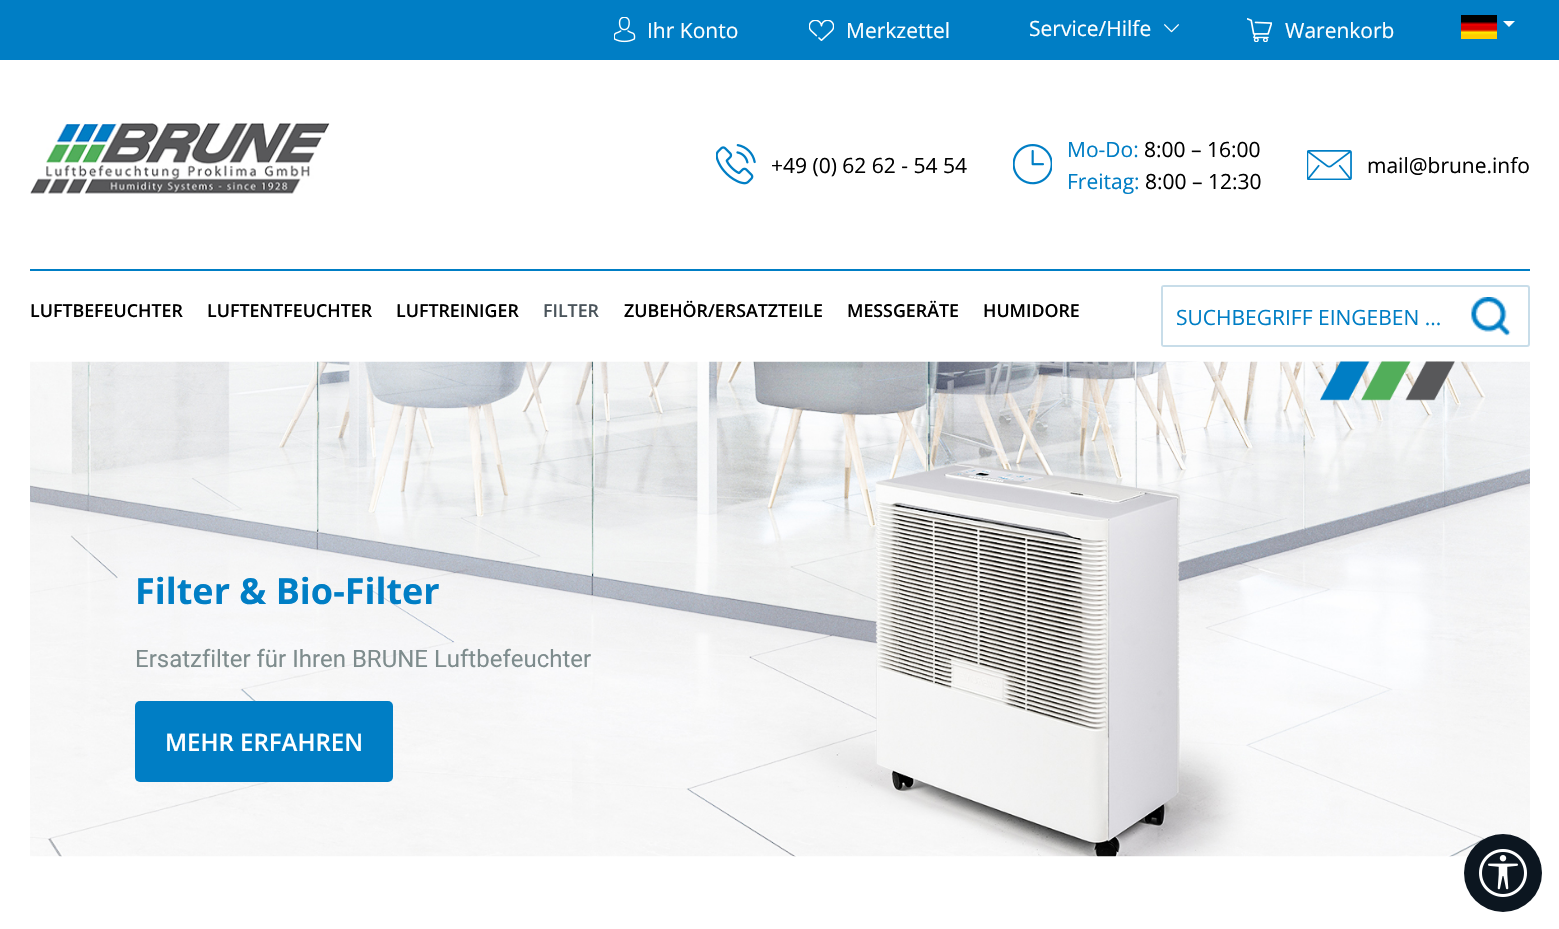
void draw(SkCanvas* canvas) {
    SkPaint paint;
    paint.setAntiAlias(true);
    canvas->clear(0xFFFFFFFF);
    paint.setColor(0xFF007EC5);
    canvas->drawRect(SkRect::MakeXYWH(0, 0, 1559, 60), paint);
    canvas->drawImageRect(SkImages::DeferredFromEncodedData(SkData::MakeFromFileName("img1.png")), SkRect::MakeXYWH(614, 17, 22, 26), SkSamplingOptions());
    SkFont font1(fontMgr->matchFamilyStyle("Open Sans", SkFontStyle::Normal()), 21);
    font1.setSubpixel(true);
    paint.setColor(0xFFFFFFFF);
    canvas->drawString("Ihr Konto", 647, 38, font1, paint);
    canvas->drawImageRect(SkImages::DeferredFromEncodedData(SkData::MakeFromFileName("img2.png")), SkRect::MakeXYWH(809, 20, 25, 21), SkSamplingOptions());
    canvas->drawString("Merkzettel", 846, 38, font1, paint);
    canvas->drawString("Service/Hilfe", 1029, 36, font1, paint);
    canvas->drawImageRect(SkImages::DeferredFromEncodedData(SkData::MakeFromFileName("img3.png")), SkRect::MakeXYWH(1164, 24, 15, 9), SkSamplingOptions());
    canvas->drawImageRect(SkImages::DeferredFromEncodedData(SkData::MakeFromFileName("img4.png")), SkRect::MakeXYWH(1247, 18, 25, 24), SkSamplingOptions());
    canvas->drawString("Warenkorb", 1285, 38, font1, paint);
    canvas->drawImageRect(SkImages::DeferredFromEncodedData(SkData::MakeFromFileName("img5.png")), SkRect::MakeXYWH(1461, 15, 36, 24), SkSamplingOptions());
    canvas->drawPath(SkPathBuilder().moveTo(1503, 21).lineTo(1515, 21).lineTo(1509, 27).close().detach(), paint);
    canvas->drawImageRect(SkImages::DeferredFromEncodedData(SkData::MakeFromFileName("img6.png")), SkRect::MakeXYWH(30, 123, 300, 71), SkSamplingOptions());
    canvas->drawImageRect(SkImages::DeferredFromEncodedData(SkData::MakeFromFileName("img7.png")), SkRect::MakeXYWH(716, 144, 40, 41), SkSamplingOptions());
    paint.setColor(0xFF000000);
    canvas->drawString("+49 (0) 62 62 - 54 54", 771, 173, font1, paint);
    canvas->drawImageRect(SkImages::DeferredFromEncodedData(SkData::MakeFromFileName("img8.png")), SkRect::MakeXYWH(1013, 144, 39, 41), SkSamplingOptions());
    paint.setColor(0xFF007EC5);
    canvas->drawString("Mo-Do:", 1067, 157, font1, paint);
    paint.setColor(0xFF000000);
    canvas->drawString("8:00 – 16:00", 1144, 157, font1, paint);
    paint.setColor(0xFF007EC5);
    canvas->drawString("Freitag:", 1067, 189, font1, paint);
    paint.setColor(0xFF000000);
    canvas->drawString("8:00 – 12:30", 1145, 189, font1, paint);
    canvas->drawImageRect(SkImages::DeferredFromEncodedData(SkData::MakeFromFileName("img9.png")), SkRect::MakeXYWH(1307, 150, 45, 30), SkSamplingOptions());
    canvas->drawString("mail@brune.info", 1367, 173, font1, paint);
    paint.setColor(0xFF007EC5);
    canvas->drawRect(SkRect::MakeXYWH(30, 269, 1500, 2), paint);
    SkFont font2(fontMgr->matchFamilyStyle("Open Sans", SkFontStyle(600, SkFontStyle::kNormal_Width, SkFontStyle::kUpright_Slant)), 17.8f);
    font2.setSubpixel(true);
    paint.setColor(0xFF000000);
    canvas->drawString("LUFTBEFEUCHTER", 30, 317, font2, paint);
    canvas->drawString("LUFTENTFEUCHTER", 207, 317, font2, paint);
    canvas->drawString("LUFTREINIGER", 396, 317, font2, paint);
    paint.setColor(0xFF4A545B);
    canvas->drawString("FILTER", 543, 317, font2, paint);
    paint.setColor(0xFF000000);
    canvas->drawString("ZUBEHÖR/ERSATZTEILE", 624, 317, font2, paint);
    canvas->drawString("MESSGERÄTE", 847, 317, font2, paint);
    canvas->drawString("HUMIDORE", 983, 317, font2, paint);
    paint.setStyle(SkPaint::kStroke_Style);
    paint.setStrokeWidth(2);
    paint.setColor(0xFFC8DDE9);
    canvas->drawRoundRect(SkRect::MakeXYWH(1162, 286, 367, 60), 2, 2, paint);
    paint.setStyle(SkPaint::kFill_Style);
    paint.setColor(0xFFFFFFFF);
    canvas->drawRect(SkRect::MakeXYWH(1163, 287, 1, 58), paint);
    paint.setColor(0xFF007EC5);
    canvas->drawString("SUCHBEGRIFF EINGEBEN ...", 1176, 325, font1, paint);
    canvas->drawImageRect(SkImages::DeferredFromEncodedData(SkData::MakeFromFileName("img10.png")), SkRect::MakeXYWH(1471, 297, 40, 39), SkSamplingOptions());
    canvas->drawImageRect(SkImages::DeferredFromEncodedData(SkData::MakeFromFileName("img12.png")), SkRect::MakeXYWH(30, 361, 1500, 496), SkSamplingOptions());
    canvas->drawImageRect(SkImages::DeferredFromEncodedData(SkData::MakeFromFileName("img11.png")), SkRect::MakeXYWH(1320, 361, 135, 40), SkSamplingOptions());
    SkFont font3(fontMgr->matchFamilyStyle("Open Sans", SkFontStyle::Bold()), 36);
    font3.setSubpixel(true);
    canvas->drawString("Filter & Bio-Filter", 135, 604, font3, paint);
    SkFont font4(fontMgr->matchFamilyStyle("Roboto", SkFontStyle::Normal()), 24);
    font4.setSubpixel(true);
    paint.setColor(0xFF7E8C8D);
    canvas->drawString("Ersatzfilter für Ihren BRUNE Luftbefeuchter", 135, 667, font4, paint);
    paint.setColor(0xFF007EC5);
    canvas->drawRoundRect(SkRect::MakeXYWH(135, 701, 258, 81), 5, 5, paint);
    SkFont font5(fontMgr->matchFamilyStyle("Open Sans", SkFontStyle(600, SkFontStyle::kNormal_Width, SkFontStyle::kUpright_Slant)), 24);
    font5.setSubpixel(true);
    paint.setColor(0xFFFFFFFF);
    canvas->drawString("MEHR ERFAHREN", 165, 751, font5, paint);
    paint.setColor(0xFF0C1620);
    canvas->drawCircle(1503, 873, 39, paint);
    canvas->drawImageRect(SkImages::DeferredFromEncodedData(SkData::MakeFromFileName("img13.png")), SkRect::MakeXYWH(1479, 849, 48, 48), SkSamplingOptions());
}
